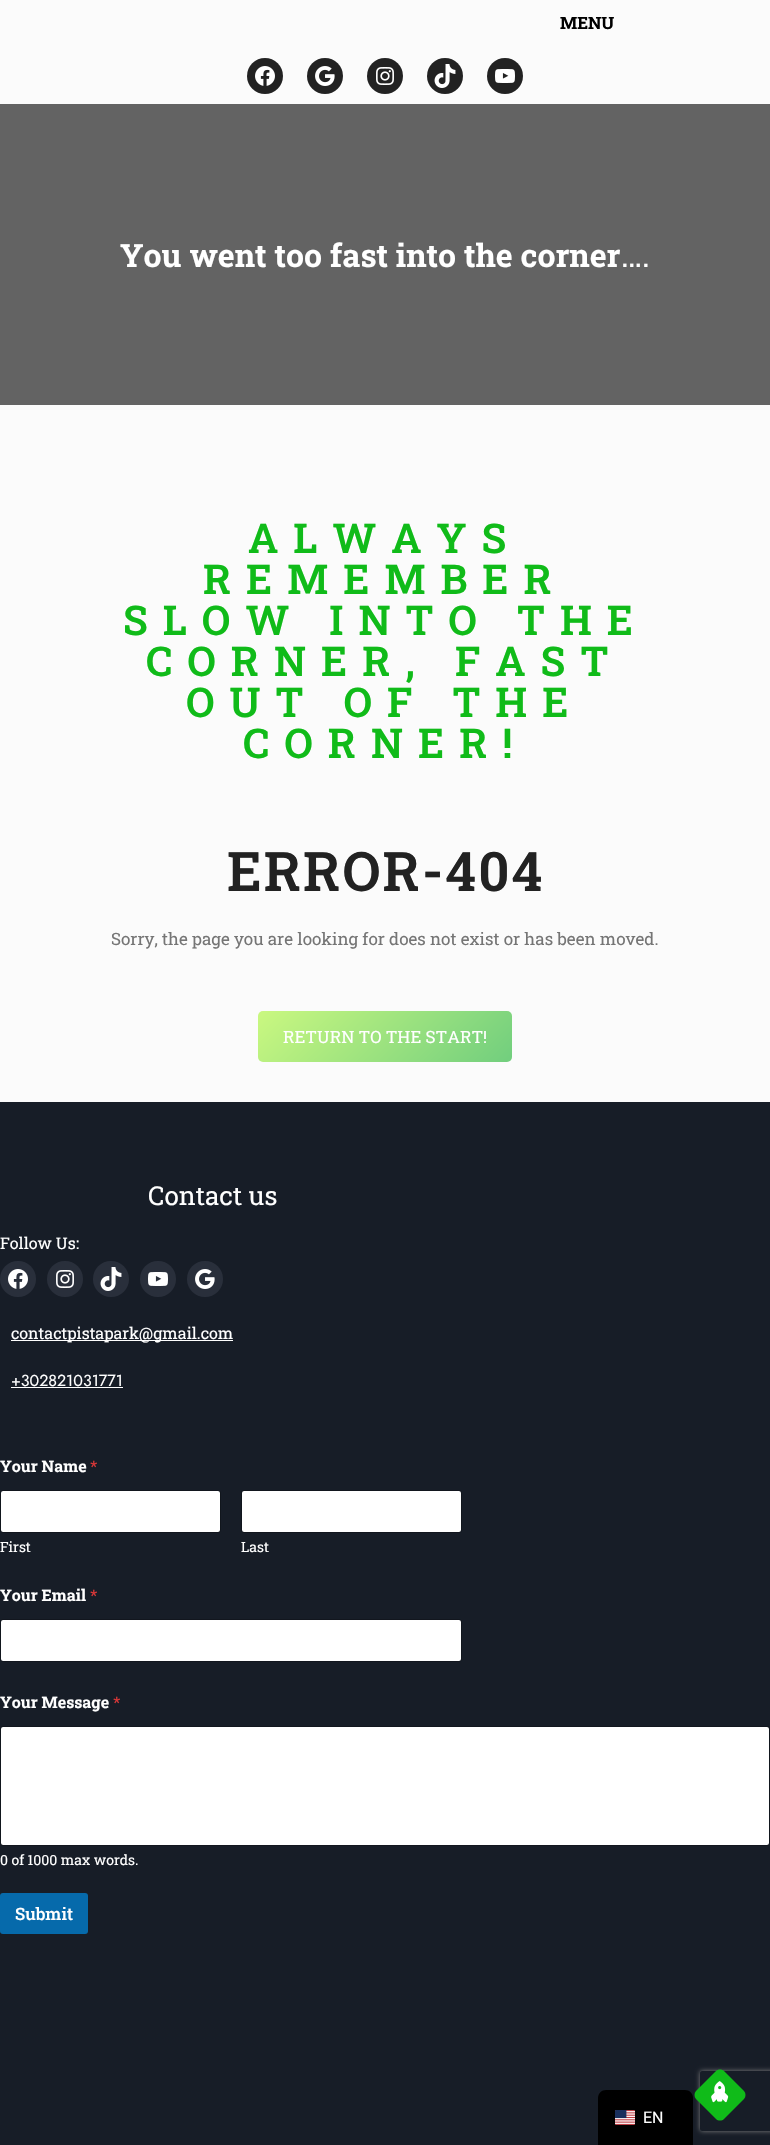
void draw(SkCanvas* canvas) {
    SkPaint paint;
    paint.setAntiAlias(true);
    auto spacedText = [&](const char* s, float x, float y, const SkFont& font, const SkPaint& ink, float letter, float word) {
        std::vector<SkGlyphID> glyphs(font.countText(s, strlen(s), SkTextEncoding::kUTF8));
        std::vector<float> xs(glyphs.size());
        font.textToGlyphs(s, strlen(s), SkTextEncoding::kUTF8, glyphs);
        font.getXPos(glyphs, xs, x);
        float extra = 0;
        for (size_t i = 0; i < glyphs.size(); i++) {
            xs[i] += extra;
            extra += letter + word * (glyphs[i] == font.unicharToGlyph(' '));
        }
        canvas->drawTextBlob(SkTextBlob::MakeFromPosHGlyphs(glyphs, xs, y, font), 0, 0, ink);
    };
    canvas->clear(0xFFFBFBFB);
    SkFont font1(fontMgr->matchFamilyStyle("Roboto Slab", SkFontStyle::Bold()), 17);
    font1.setSubpixel(true);
    paint.setColor(0xFF000000);
    canvas->drawString("MENU", 560, 29, font1, paint);
    paint.setColor(0xFF222222);
    canvas->drawCircle(265, 76, 18, paint);
    canvas->drawImageRect(SkImages::DeferredFromEncodedData(SkData::MakeFromFileName("img1.png")), SkRect::MakeXYWH(255, 66, 20, 20), SkSamplingOptions());
    canvas->drawCircle(325, 76, 18, paint);
    canvas->drawImageRect(SkImages::DeferredFromEncodedData(SkData::MakeFromFileName("img2.png")), SkRect::MakeXYWH(315, 66, 20, 20), SkSamplingOptions());
    canvas->drawCircle(385, 76, 18, paint);
    canvas->drawImageRect(SkImages::DeferredFromEncodedData(SkData::MakeFromFileName("img3.png")), SkRect::MakeXYWH(376, 67, 18, 18), SkSamplingOptions());
    canvas->drawCircle(445, 76, 18, paint);
    canvas->drawImageRect(SkImages::DeferredFromEncodedData(SkData::MakeFromFileName("img4.png")), SkRect::MakeXYWH(434, 64, 22, 24), SkSamplingOptions());
    canvas->drawCircle(505, 76, 18, paint);
    canvas->drawImageRect(SkImages::DeferredFromEncodedData(SkData::MakeFromFileName("img5.png")), SkRect::MakeXYWH(495, 69, 20, 14), SkSamplingOptions());
    paint.setColor(0xFF636363);
    canvas->drawRect(SkRect::MakeXYWH(0, 104, 770, 301), paint);
    SkFont font2(fontMgr->matchFamilyStyle("Roboto Slab", SkFontStyle::Bold()), 32);
    font2.setSubpixel(true);
    paint.setColor(0xFFFFFFFF);
    canvas->drawString("You went too fast into the corner", 120, 267, font2, paint);
    SkFont font3(fontMgr->matchFamilyStyle("Roboto Slab", SkFontStyle::Normal()), 32);
    font3.setSubpixel(true);
    canvas->drawString("….", 621, 267, font3, paint);
    SkFont font4(fontMgr->matchFamilyStyle("Roboto Slab", SkFontStyle(600, SkFontStyle::kNormal_Width, SkFontStyle::kUpright_Slant)), 41);
    font4.setSubpixel(true);
    paint.setColor(0xFF10BB19);
    spacedText("ALWAYS", 248, 553, font4, paint, 15, 0);
    spacedText("REMEMBER", 203, 594, font4, paint, 15, 0);
    spacedText("SLOW INTO THE", 123, 635, font4, paint, 15, 0);
    spacedText("CORNER, FAST", 146, 676, font4, paint, 15, 0);
    spacedText("OUT OF THE", 186, 717, font4, paint, 15, 0);
    spacedText("CORNER!", 243, 758, font4, paint, 15, 0);
    SkFont font5(fontMgr->matchFamilyStyle("Roboto Slab", SkFontStyle(600, SkFontStyle::kNormal_Width, SkFontStyle::kUpright_Slant)), 54.5f);
    font5.setSubpixel(true);
    paint.setColor(0xFF222222);
    spacedText("ERROR-404", 227, 891, font5, paint, 2, 0);
    SkFont font6(fontMgr->matchFamilyStyle("Roboto Slab", SkFontStyle::Normal()), 17);
    font6.setSubpixel(true);
    paint.setColor(0xFF757575);
    canvas->drawString("Sorry, the page you are looking for does not exist or has been moved.", 111, 945, font6, paint);
    {
        const SkColor colors[] = {0xFFCAF880, 0xFF71CE7E};
        const float stops[] = {0, 1};
        const SkPoint ends[] = {{309, 960}, {461, 1113}};
        paint.setShader(SkGradientShader::MakeLinear(ends, colors, stops, 2, SkTileMode::kClamp));
        paint.setAlpha(255);
    }
    canvas->drawRoundRect(SkRect::MakeXYWH(258, 1011, 254, 51), 5, 5, paint);
    paint.setShader(nullptr);
    paint.setColor(0xFFFFFFFF);
    canvas->drawString("RETURN TO THE START!", 283, 1043, font6, paint);
    paint.setColor(0xFF171D27);
    canvas->drawRect(SkRect::MakeXYWH(0, 1102, 770, 1043), paint);
    SkFont font7(fontMgr->matchFamilyStyle("Roboto Slab", SkFontStyle::Normal()), 26);
    font7.setSubpixel(true);
    paint.setColor(0xFFFFFFFF);
    canvas->drawString("Contact us", 148, 1205, font7, paint);
    SkFont font8(fontMgr->matchFamilyStyle("Roboto Slab", SkFontStyle::Normal()), 16);
    font8.setSubpixel(true);
    canvas->drawString("Follow Us:", 0, 1249, font8, paint);
    paint.setColor(0xFF292F3B);
    canvas->drawCircle(18, 1279, 18, paint);
    canvas->drawImageRect(SkImages::DeferredFromEncodedData(SkData::MakeFromFileName("img6.png")), SkRect::MakeXYWH(8, 1269, 20, 20), SkSamplingOptions());
    canvas->drawCircle(65, 1279, 18, paint);
    canvas->drawImageRect(SkImages::DeferredFromEncodedData(SkData::MakeFromFileName("img7.png")), SkRect::MakeXYWH(56, 1270, 18, 18), SkSamplingOptions());
    canvas->drawCircle(111, 1279, 18, paint);
    canvas->drawImageRect(SkImages::DeferredFromEncodedData(SkData::MakeFromFileName("img8.png")), SkRect::MakeXYWH(100, 1267, 22, 24), SkSamplingOptions());
    canvas->drawCircle(158, 1279, 18, paint);
    canvas->drawImageRect(SkImages::DeferredFromEncodedData(SkData::MakeFromFileName("img9.png")), SkRect::MakeXYWH(148, 1272, 20, 14), SkSamplingOptions());
    canvas->drawCircle(205, 1279, 18, paint);
    canvas->drawImageRect(SkImages::DeferredFromEncodedData(SkData::MakeFromFileName("img10.png")), SkRect::MakeXYWH(195, 1269, 20, 20), SkSamplingOptions());
    paint.setColor(0xFFFFFFFF);
    canvas->drawRect(SkRect::MakeXYWH(11, 1340, 222, 1), paint);
    canvas->drawString("contactpistapark@gmail.com", 11, 1339, font8, paint);
    SkFont font9(fontMgr->matchFamilyStyle("Jost", SkFontStyle::Normal()), 16);
    font9.setSubpixel(true);
    canvas->drawString("+302821031771", 11, 1386, font9, paint);
    canvas->drawRect(SkRect::MakeXYWH(11, 1387, 112, 1), paint);
    SkFont font10(fontMgr->matchFamilyStyle("Roboto Slab", SkFontStyle::Bold()), 16);
    font10.setSubpixel(true);
    canvas->drawString("Your Name", 0, 1472, font10, paint);
    paint.setColor(0xFFD63637);
    canvas->drawString("*", 90, 1472, font8, paint);
    paint.setColor(0xFFFFFFFF);
    canvas->drawRoundRect(SkRect::MakeXYWH(1, 1491, 219, 41), 2, 2, paint);
    paint.setStyle(SkPaint::kStroke_Style);
    paint.setStrokeWidth(1);
    paint.setColor(0x40000000);
    canvas->drawRoundRect(SkRect::MakeXYWH(0.5f, 1490.5f, 220, 42), 2.5f, 2.5f, paint);
    SkFont font11(fontMgr->matchFamilyStyle("Roboto Slab", SkFontStyle::Normal()), 14);
    font11.setSubpixel(true);
    paint.setStyle(SkPaint::kFill_Style);
    paint.setColor(0xFFFFFFFF);
    canvas->drawString("First", 0, 1552, font11, paint);
    canvas->drawRoundRect(SkRect::MakeXYWH(242, 1491, 219, 41), 2, 2, paint);
    paint.setStyle(SkPaint::kStroke_Style);
    paint.setColor(0x40000000);
    canvas->drawRoundRect(SkRect::MakeXYWH(241.5f, 1490.5f, 220, 42), 2.5f, 2.5f, paint);
    paint.setStyle(SkPaint::kFill_Style);
    paint.setColor(0xFFFFFFFF);
    canvas->drawString("Last", 241, 1552, font11, paint);
    canvas->drawString("Your Email", 0, 1601, font10, paint);
    paint.setColor(0xFFD63637);
    canvas->drawString("*", 90, 1601, font8, paint);
    paint.setColor(0xFFFFFFFF);
    canvas->drawRoundRect(SkRect::MakeXYWH(1, 1620, 460, 41), 2, 2, paint);
    paint.setStyle(SkPaint::kStroke_Style);
    paint.setColor(0x40000000);
    canvas->drawRoundRect(SkRect::MakeXYWH(0.5f, 1619.5f, 461, 42), 2.5f, 2.5f, paint);
    paint.setStyle(SkPaint::kFill_Style);
    paint.setColor(0xFFFFFFFF);
    canvas->drawString("Your Message", 0, 1708, font10, paint);
    paint.setColor(0xFFD63637);
    canvas->drawString("*", 113, 1708, font8, paint);
    paint.setColor(0xFFFFFFFF);
    canvas->drawRoundRect(SkRect::MakeXYWH(1, 1727, 768, 118), 2, 2, paint);
    paint.setStyle(SkPaint::kStroke_Style);
    paint.setColor(0x40000000);
    canvas->drawRoundRect(SkRect::MakeXYWH(0.5f, 1726.5f, 769, 119), 2.5f, 2.5f, paint);
    paint.setStyle(SkPaint::kFill_Style);
    paint.setColor(0xFFFFFFFF);
    canvas->drawString("0 of 1000 max words.", 0, 1865, font11, paint);
    paint.setColor(0xFF066AAB);
    canvas->drawRoundRect(SkRect::MakeXYWH(0, 1893, 88, 41), 3, 3, paint);
    SkFont font12(fontMgr->matchFamilyStyle("Roboto Slab", SkFontStyle(500, SkFontStyle::kNormal_Width, SkFontStyle::kUpright_Slant)), 17);
    font12.setSubpixel(true);
    paint.setColor(0xFFFFFFFF);
    canvas->drawString("Submit", 15, 1920, font12, paint);
    canvas->save();
    canvas->clipPath(SkPathBuilder(SkPathFillType::kEvenOdd).moveTo(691, 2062).lineTo(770, 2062).lineTo(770, 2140).lineTo(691, 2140).close().moveTo(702, 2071).lineTo(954, 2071).cubicTo(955, 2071, 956, 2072, 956, 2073).lineTo(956, 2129).cubicTo(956, 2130, 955, 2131, 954, 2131).lineTo(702, 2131).cubicTo(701, 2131, 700, 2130, 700, 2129).lineTo(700, 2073).cubicTo(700, 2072, 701, 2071, 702, 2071).close().detach(), true);
    paint.setColor(0xFF808080);
    paint.setMaskFilter(SkMaskFilter::MakeBlur(kNormal_SkBlurStyle, 2.5f));
    canvas->drawRoundRect(SkRect::MakeXYWH(700, 2071, 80, 60), 2, 2, paint);
    paint.setMaskFilter(nullptr);
    canvas->restore();
    paint.setColor(0xFF10BB19);
    canvas->drawPath(SkPathBuilder().moveTo(696, 2091).lineTo(716, 2071).cubicTo(718, 2069, 722, 2069, 724, 2071).lineTo(744, 2091).cubicTo(746, 2093, 746, 2097, 744, 2099).lineTo(724, 2119).cubicTo(722, 2121, 718, 2121, 716, 2119).lineTo(696, 2099).cubicTo(694, 2097, 694, 2093, 696, 2091).close().detach(), paint);
    canvas->drawImageRect(SkImages::DeferredFromEncodedData(SkData::MakeFromFileName("img11.png")), SkRect::MakeXYWH(711, 2081, 18, 22), SkSamplingOptions());
    paint.setColor(0xFF000000);
    canvas->drawPath(SkPathBuilder().moveTo(606, 2090).lineTo(685, 2090).cubicTo(689.5f, 2090, 693, 2093.5f, 693, 2098).lineTo(693, 2145).lineTo(598, 2145).lineTo(598, 2098).cubicTo(598, 2093.5f, 601.5f, 2090, 606, 2090).close().detach(), paint);
    canvas->drawImageRect(SkImages::DeferredFromEncodedData(SkData::MakeFromFileName("img12.png")), SkRect::MakeXYWH(615, 2110, 20, 15), SkSamplingOptions());
    SkFont font13(fontMgr->matchFamilyStyle("Roboto", SkFontStyle::Normal()), 16);
    font13.setSubpixel(true);
    paint.setColor(0xFFFFFFFF);
    canvas->drawString("EN", 643, 2123, font13, paint);
}
